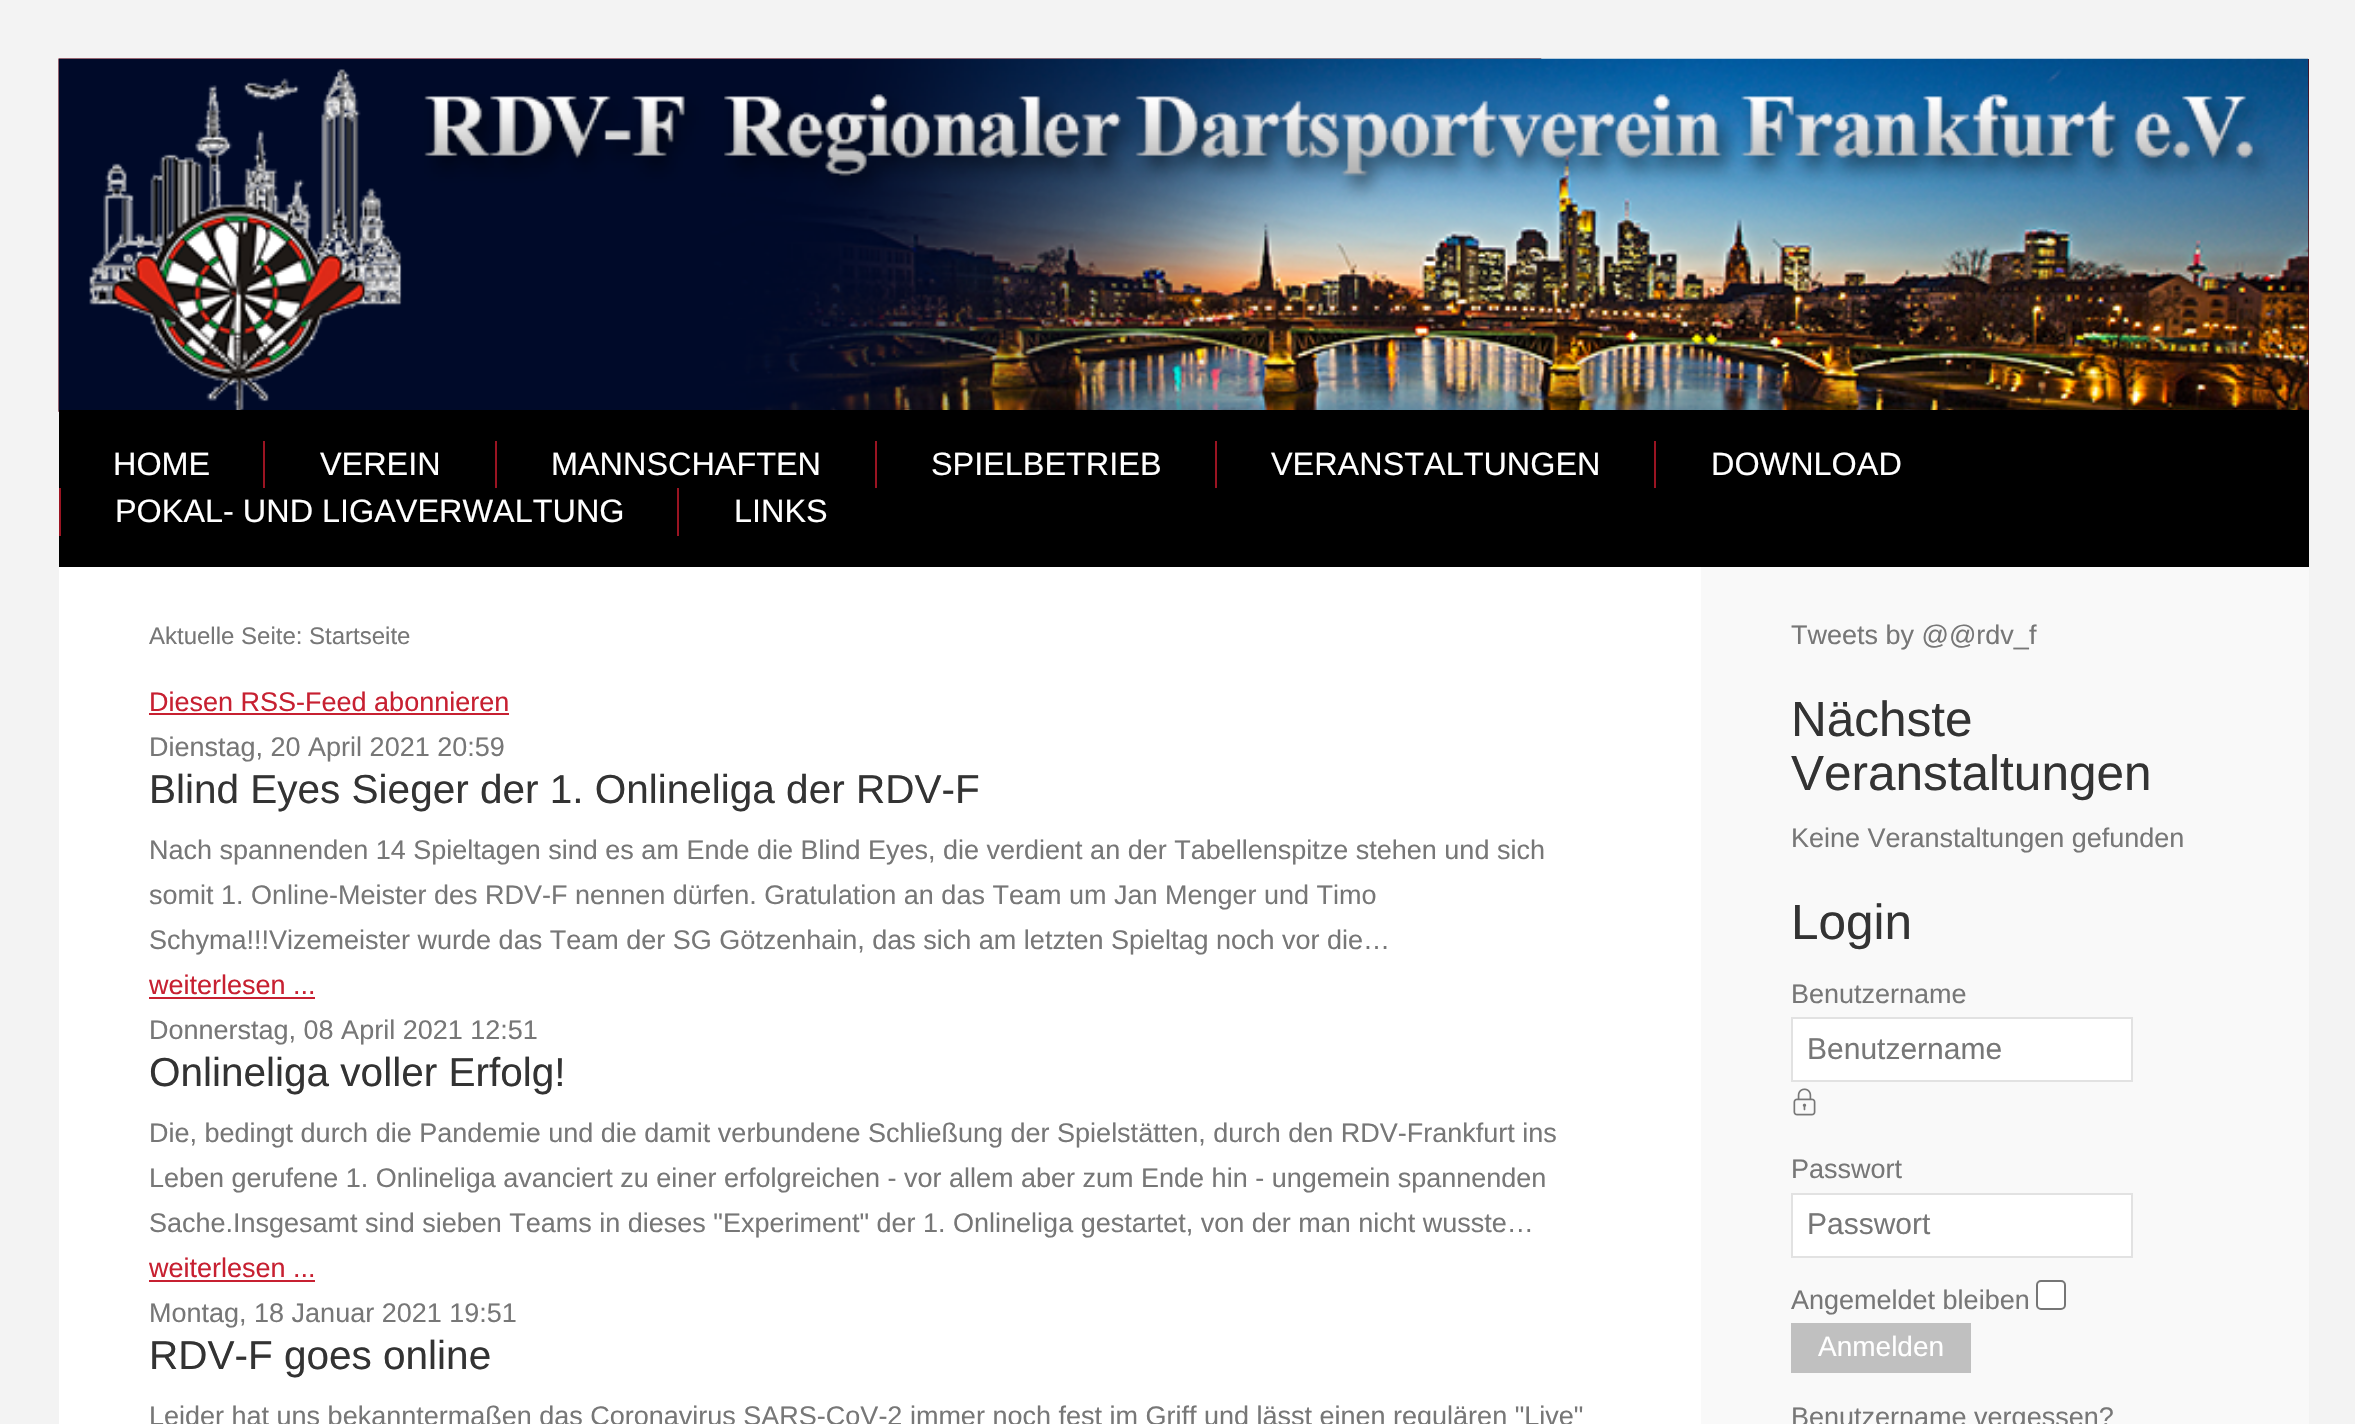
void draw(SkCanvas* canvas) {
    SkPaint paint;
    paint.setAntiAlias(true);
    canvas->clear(0xFFF3F3F3);
    paint.setColor(0xFF56030B);
    canvas->drawRect(SkRect::MakeXYWH(2308, 59, 1, 351), paint);
    canvas->drawImageRect(SkImages::DeferredFromEncodedData(SkData::MakeFromFileName("img1.png")), SkRect::MakeXYWH(58, 58, 1484, 354), SkSamplingOptions());
    canvas->drawImageRect(SkImages::DeferredFromEncodedData(SkData::MakeFromFileName("img2.png")), SkRect::MakeXYWH(58, 58, 2251, 354), SkSamplingOptions());
    paint.setColor(0xFF000000);
    canvas->drawRect(SkRect::MakeXYWH(59, 410, 2250, 157), paint);
    SkFont font1(fontMgr->matchFamilyStyle("Liberation Sans", SkFontStyle::Normal()), 32.4f);
    font1.setSubpixel(true);
    paint.setColor(0xFFFFFFFF);
    canvas->drawString("HOME", 113, 475, font1, paint);
    paint.setColor(0xFF9A1422);
    canvas->drawRect(SkRect::MakeXYWH(263, 441, 2, 47), paint);
    paint.setColor(0xFFFFFFFF);
    canvas->drawString("VEREIN", 320, 475, font1, paint);
    paint.setColor(0xFF9A1422);
    canvas->drawRect(SkRect::MakeXYWH(495, 441, 2, 47), paint);
    paint.setColor(0xFFFFFFFF);
    canvas->drawString("MANNSCHAFTEN", 551, 475, font1, paint);
    paint.setColor(0xFF9A1422);
    canvas->drawRect(SkRect::MakeXYWH(875, 441, 2, 47), paint);
    paint.setColor(0xFFFFFFFF);
    canvas->drawString("SPIELBETRIEB", 931, 475, font1, paint);
    paint.setColor(0xFF9A1422);
    canvas->drawRect(SkRect::MakeXYWH(1215, 441, 2, 47), paint);
    paint.setColor(0xFFFFFFFF);
    canvas->drawString("VERANSTALTUNGEN", 1271, 475, font1, paint);
    paint.setColor(0xFF9A1422);
    canvas->drawRect(SkRect::MakeXYWH(1654, 441, 2, 47), paint);
    paint.setColor(0xFFFFFFFF);
    canvas->drawString("DOWNLOAD", 1711, 475, font1, paint);
    paint.setColor(0xFF9A1422);
    canvas->drawRect(SkRect::MakeXYWH(59, 488, 2, 48), paint);
    paint.setColor(0xFFFFFFFF);
    canvas->drawString("POKAL- UND LIGAVERWALTUNG", 115, 522, font1, paint);
    paint.setColor(0xFF9A1422);
    canvas->drawRect(SkRect::MakeXYWH(677, 488, 2, 48), paint);
    paint.setColor(0xFFFFFFFF);
    canvas->drawString("LINKS", 734, 522, font1, paint);
    paint.setColor(0xFFF9F9F9);
    canvas->drawRect(SkRect::MakeXYWH(1701, 567, 608, 857), paint);
    paint.setColor(0xFFFFFFFF);
    canvas->drawRect(SkRect::MakeXYWH(59, 567, 1642, 857), paint);
    SkFont font2(fontMgr->matchFamilyStyle("Liberation Sans", SkFontStyle::Normal()), 24);
    font2.setSubpixel(true);
    paint.setColor(0xFF777777);
    canvas->drawString("Aktuelle Seite: Startseite", 149, 644, font2, paint);
    SkFont font3(fontMgr->matchFamilyStyle("Liberation Sans", SkFontStyle::Normal()), 27);
    font3.setSubpixel(true);
    paint.setColor(0xFFC72031);
    canvas->drawString("Diesen RSS-Feed abonnieren", 149, 711, font3, paint);
    canvas->drawRect(SkRect::MakeXYWH(149, 713, 360, 2), paint);
    paint.setColor(0xFF777777);
    canvas->drawString("Dienstag, 20 April 2021 20:59", 149, 756, font3, paint);
    SkFont font4(fontMgr->matchFamilyStyle("Liberation Sans", SkFontStyle::Normal()), 40.5f);
    font4.setSubpixel(true);
    paint.setColor(0xFF333333);
    canvas->drawString("Blind Eyes Sieger der 1. Onlineliga der RDV-F", 149, 803, font4, paint);
    paint.setColor(0xFF777777);
    canvas->drawString("Nach spannenden 14 Spieltagen sind es am Ende die Blind Eyes, die verdient an der Tabellenspitze stehen und sich", 149, 859, font3, paint);
    canvas->drawString("somit 1. Online-Meister des RDV-F nennen dürfen. Gratulation an das Team um Jan Menger und Timo", 149, 904, font3, paint);
    canvas->drawString("Schyma!!!Vizemeister wurde das Team der SG Götzenhain, das sich am letzten Spieltag noch vor die…", 149, 949, font3, paint);
    canvas->save();
    canvas->clipRect(SkRect::MakeXYWH(149, 567, 1462, 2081));
    paint.setColor(0xFFC72031);
    canvas->drawString("weiterlesen ...", 149, 994, font3, paint);
    canvas->restore();
    canvas->drawRect(SkRect::MakeXYWH(149, 997, 166, 2), paint);
    paint.setColor(0xFF777777);
    canvas->drawString("Donnerstag, 08 April 2021 12:51", 149, 1039, font3, paint);
    paint.setColor(0xFF333333);
    canvas->drawString("Onlineliga voller Erfolg!", 149, 1086, font4, paint);
    paint.setColor(0xFF777777);
    canvas->drawString("Die, bedingt durch die Pandemie und die damit verbundene Schließung der Spielstätten, durch den RDV-Frankfurt ins", 149, 1142, font3, paint);
    canvas->drawString("Leben gerufene 1. Onlineliga avanciert zu einer erfolgreichen - vor allem aber zum Ende hin - ungemein spannenden", 149, 1187, font3, paint);
    canvas->drawString("Sache.Insgesamt sind sieben Teams in dieses \"Experiment\" der 1. Onlineliga gestartet, von der man nicht wusste…", 149, 1232, font3, paint);
    canvas->save();
    canvas->clipRect(SkRect::MakeXYWH(149, 567, 1462, 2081));
    paint.setColor(0xFFC72031);
    canvas->drawString("weiterlesen ...", 149, 1277, font3, paint);
    canvas->restore();
    canvas->drawRect(SkRect::MakeXYWH(149, 1280, 166, 2), paint);
    paint.setColor(0xFF777777);
    canvas->drawString("Montag, 18 Januar 2021 19:51", 149, 1322, font3, paint);
    paint.setColor(0xFF333333);
    canvas->drawString("RDV-F goes online", 149, 1369, font4, paint);
    paint.setColor(0xFF777777);
    canvas->drawString("Leider hat uns bekanntermaßen das Coronavirus SARS-CoV-2 immer noch fest im Griff und lässt einen regulären \"Live\"", 149, 1425, font3, paint);
    canvas->drawString("Tweets by @@rdv_f", 1791, 644, font3, paint);
    SkFont font5(fontMgr->matchFamilyStyle("Liberation Sans", SkFontStyle::Normal()), 49.5f);
    font5.setSubpixel(true);
    paint.setColor(0xFF333333);
    canvas->drawString("Nächste", 1791, 736, font5, paint);
    canvas->drawString("Veranstaltungen", 1791, 790, font5, paint);
    paint.setColor(0xFF777777);
    canvas->drawString("Keine Veranstaltungen gefunden", 1791, 847, font3, paint);
    paint.setColor(0xFF333333);
    canvas->drawString("Login", 1791, 939, font5, paint);
    paint.setColor(0xFF777777);
    canvas->drawString("Benutzername", 1791, 1003, font3, paint);
    paint.setColor(0xFFFFFFFF);
    canvas->drawRect(SkRect::MakeXYWH(1792, 1018, 340, 63), paint);
    paint.setStyle(SkPaint::kStroke_Style);
    paint.setStrokeWidth(2);
    paint.setColor(0xFFE2E2E2);
    canvas->drawRect(SkRect::MakeXYWH(1792, 1018, 340, 63), paint);
    SkFont font6(fontMgr->matchFamilyStyle("Liberation Sans", SkFontStyle::Normal()), 30);
    font6.setSubpixel(true);
    paint.setStyle(SkPaint::kFill_Style);
    paint.setColor(0xFF777777);
    canvas->drawString("Benutzername", 1807, 1059, font6, paint);
    canvas->drawImageRect(SkImages::DeferredFromEncodedData(SkData::MakeFromFileName("img3.png")), SkRect::MakeXYWH(1793, 1088, 23, 28), SkSamplingOptions());
    canvas->drawString("Passwort", 1791, 1178, font3, paint);
    paint.setColor(0xFFFFFFFF);
    canvas->drawRect(SkRect::MakeXYWH(1792, 1194, 340, 63), paint);
    paint.setStyle(SkPaint::kStroke_Style);
    paint.setColor(0xFFE2E2E2);
    canvas->drawRect(SkRect::MakeXYWH(1792, 1194, 340, 63), paint);
    paint.setStyle(SkPaint::kFill_Style);
    paint.setColor(0xFF777777);
    canvas->drawString("Passwort", 1807, 1234, font6, paint);
    canvas->drawString("Angemeldet bleiben", 1791, 1309, font3, paint);
    paint.setColor(0xFFFFFFFF);
    canvas->drawRoundRect(SkRect::MakeXYWH(2037, 1281, 28, 28), 4, 4, paint);
    paint.setStyle(SkPaint::kStroke_Style);
    paint.setColor(0xFF767676);
    canvas->drawRoundRect(SkRect::MakeXYWH(2037, 1281, 28, 28), 4, 4, paint);
    paint.setStyle(SkPaint::kFill_Style);
    paint.setColor(0xFFC0C0C0);
    canvas->drawRect(SkRect::MakeXYWH(1791, 1323, 180, 50), paint);
    SkFont font7(fontMgr->matchFamilyStyle("Liberation Sans", SkFontStyle::Normal()), 28);
    font7.setSubpixel(true);
    paint.setColor(0xFFFFFFFF);
    canvas->drawString("Anmelden", 1818, 1356, font7, paint);
    paint.setColor(0xFF777777);
    canvas->drawString("Benutzername vergessen?", 1791, 1426, font3, paint);
}
